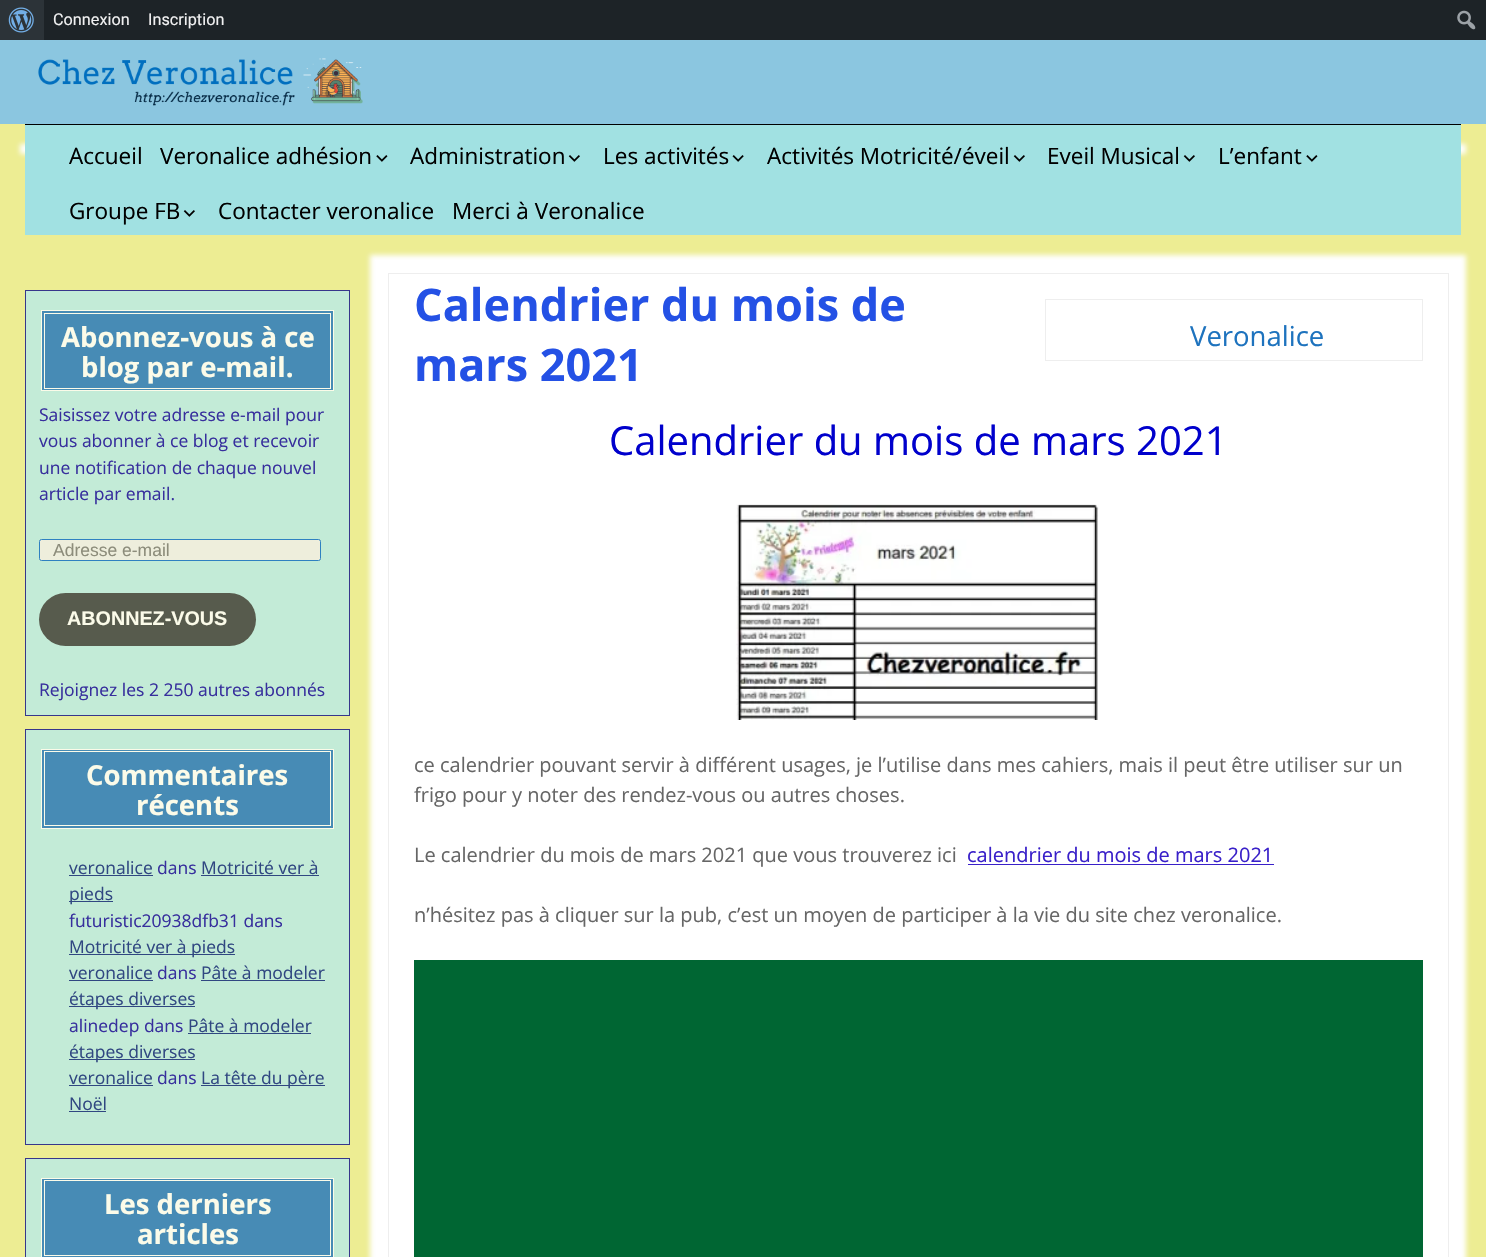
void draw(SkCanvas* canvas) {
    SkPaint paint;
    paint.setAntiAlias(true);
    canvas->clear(0xFFEDED93);
    paint.setColor(0xFF1D2327);
    canvas->drawRect(SkRect::MakeXYWH(44, 0, 1442, 40), paint);
    paint.setColor(0xFF2C3338);
    canvas->drawRect(SkRect::MakeXYWH(0, 0, 44, 40), paint);
    canvas->drawImageRect(SkImages::DeferredFromEncodedData(SkData::MakeFromFileName("img1.png")), SkRect::MakeXYWH(8, 7, 26, 26), SkSamplingOptions());
    SkFont font1(fontMgr->matchFamilyStyle("Roboto", SkFontStyle::Normal()), 16.25f);
    font1.setSubpixel(true);
    paint.setColor(0xFFF0F0F1);
    canvas->drawString("Connexion", 53, 25, font1, paint);
    canvas->drawString("Inscription", 148, 25, font1, paint);
    canvas->drawImageRect(SkImages::DeferredFromEncodedData(SkData::MakeFromFileName("img2.png")), SkRect::MakeXYWH(1457, 10, 19, 20), SkSamplingOptions());
    paint.setColor(0xFF8BC6E0);
    canvas->drawRect(SkRect::MakeXYWH(0, 40, 1486, 84), paint);
    canvas->drawImageRect(SkImages::DeferredFromEncodedData(SkData::MakeFromFileName("img3.png")), SkRect::MakeXYWH(38, 58, 325, 48), SkSamplingOptions());
    paint.setColor(0xFFFFFFFF);
    paint.setMaskFilter(SkMaskFilter::MakeBlur(kNormal_SkBlurStyle, 2.5f));
    canvas->drawRect(SkRect::MakeXYWH(20, 144, 1446, 10), paint);
    paint.setMaskFilter(nullptr);
    paint.setColor(0xFFA1E1E2);
    canvas->drawRect(SkRect::MakeXYWH(25, 125, 1436, 110), paint);
    paint.setColor(0xFF000000);
    canvas->drawRect(SkRect::MakeXYWH(25, 124, 1436, 1), paint);
    SkFont font2(fontMgr->matchFamilyStyle("Open Sans", SkFontStyle::Normal()), 22.5f);
    font2.setSubpixel(true);
    canvas->drawString("Accueil", 69, 164, font2, paint);
    canvas->drawString("Veronalice adhésion", 160, 164, font2, paint);
    canvas->drawImageRect(SkImages::DeferredFromEncodedData(SkData::MakeFromFileName("img4.png")), SkRect::MakeXYWH(376, 155, 12, 7), SkSamplingOptions());
    canvas->drawString("Administration", 410, 164, font2, paint);
    canvas->drawImageRect(SkImages::DeferredFromEncodedData(SkData::MakeFromFileName("img5.png")), SkRect::MakeXYWH(568, 155, 12, 7), SkSamplingOptions());
    canvas->drawString("Les activités", 603, 164, font2, paint);
    canvas->drawImageRect(SkImages::DeferredFromEncodedData(SkData::MakeFromFileName("img6.png")), SkRect::MakeXYWH(732, 155, 12, 7), SkSamplingOptions());
    canvas->drawString("Activités Motricité/éveil", 767, 164, font2, paint);
    canvas->drawImageRect(SkImages::DeferredFromEncodedData(SkData::MakeFromFileName("img5.png")), SkRect::MakeXYWH(1013, 155, 12, 7), SkSamplingOptions());
    canvas->drawString("Eveil Musical", 1047, 164, font2, paint);
    canvas->drawImageRect(SkImages::DeferredFromEncodedData(SkData::MakeFromFileName("img5.png")), SkRect::MakeXYWH(1183, 155, 12, 7), SkSamplingOptions());
    canvas->drawString("L’enfant", 1218, 164, font2, paint);
    canvas->drawImageRect(SkImages::DeferredFromEncodedData(SkData::MakeFromFileName("img4.png")), SkRect::MakeXYWH(1306, 155, 12, 7), SkSamplingOptions());
    canvas->drawString("Groupe FB", 69, 219, font2, paint);
    canvas->drawImageRect(SkImages::DeferredFromEncodedData(SkData::MakeFromFileName("img5.png")), SkRect::MakeXYWH(183, 210, 12, 7), SkSamplingOptions());
    canvas->drawString("Contacter veronalice", 218, 219, font2, paint);
    canvas->drawString("Merci à Veronalice", 452, 219, font2, paint);
    paint.setColor(0xFFC3EBD7);
    canvas->drawRect(SkRect::MakeXYWH(25.5f, 290.5f, 324, 425), paint);
    paint.setStyle(SkPaint::kStroke_Style);
    paint.setStrokeWidth(1);
    paint.setColor(0xFF37368B);
    canvas->drawRect(SkRect::MakeXYWH(25.5f, 290.5f, 324, 425), paint);
    paint.setStyle(SkPaint::kFill_Style);
    paint.setColor(0xFF478BB5);
    canvas->drawRect(SkRect::MakeXYWH(41.5f, 310.5f, 292, 80), paint);
    paint.setStyle(SkPaint::kStroke_Style);
    paint.setColor(0xFFFBFBE9);
    canvas->drawRect(SkRect::MakeXYWH(41.5f, 310.5f, 292, 80), paint);
    canvas->drawRect(SkRect::MakeXYWH(44.5f, 313.5f, 286, 75), paint);
    SkFont font3(fontMgr->matchFamilyStyle("Open Sans", SkFontStyle::Bold()), 27.5f);
    font3.setSubpixel(true);
    paint.setStyle(SkPaint::kFill_Style);
    canvas->drawString("Abonnez-vous à ce", 61, 347, font3, paint);
    canvas->drawString("blog par e-mail.", 81, 377, font3, paint);
    SkFont font4(fontMgr->matchFamilyStyle("Open Sans", SkFontStyle::Normal()), 17.5f);
    font4.setSubpixel(true);
    paint.setColor(0xFF372F9D);
    canvas->drawString("Saisissez votre adresse e-mail pour", 39, 421, font4, paint);
    canvas->drawString("vous abonner à ce blog et recevoir", 39, 447, font4, paint);
    canvas->drawString("une notification de chaque nouvel", 39, 474, font4, paint);
    canvas->drawString("article par email.", 39, 500, font4, paint);
    paint.setColor(0xFFEEEEDC);
    canvas->drawRoundRect(SkRect::MakeXYWH(39.5f, 539.5f, 281, 21), 2, 2, paint);
    paint.setStyle(SkPaint::kStroke_Style);
    paint.setColor(0xFF2F81C1);
    canvas->drawRoundRect(SkRect::MakeXYWH(39.5f, 539.5f, 281, 21), 2, 2, paint);
    SkFont font5(fontMgr->matchFamilyStyle("Liberation Sans", SkFontStyle::Normal()), 17.5f);
    font5.setSubpixel(true);
    paint.setStyle(SkPaint::kFill_Style);
    paint.setColor(0xFF8D8D7B);
    canvas->drawString("Adresse e-mail", 53, 556, font5, paint);
    paint.setColor(0xFF575B4D);
    canvas->drawRoundRect(SkRect::MakeXYWH(39, 593, 217, 53), 26.5f, 26.5f, paint);
    SkFont font6(fontMgr->matchFamilyStyle("Liberation Sans", SkFontStyle::Bold()), 19.75f);
    font6.setSubpixel(true);
    paint.setColor(0xFFFBFBE9);
    canvas->drawString("ABONNEZ-VOUS", 67, 625, font6, paint);
    paint.setColor(0xFF372F9D);
    canvas->drawString("Rejoignez les 2 250 autres abonnés", 39, 696, font4, paint);
    paint.setColor(0xFFC3EBD7);
    canvas->drawRect(SkRect::MakeXYWH(25.5f, 729.5f, 324, 415), paint);
    paint.setStyle(SkPaint::kStroke_Style);
    paint.setColor(0xFF37368B);
    canvas->drawRect(SkRect::MakeXYWH(25.5f, 729.5f, 324, 415), paint);
    paint.setStyle(SkPaint::kFill_Style);
    paint.setColor(0xFF478BB5);
    canvas->drawRect(SkRect::MakeXYWH(41.5f, 749.5f, 292, 79), paint);
    paint.setStyle(SkPaint::kStroke_Style);
    paint.setColor(0xFFFBFBE9);
    canvas->drawRect(SkRect::MakeXYWH(41.5f, 749.5f, 292, 79), paint);
    canvas->drawRect(SkRect::MakeXYWH(44.5f, 751.5f, 286, 74), paint);
    paint.setStyle(SkPaint::kFill_Style);
    canvas->drawString("Commentaires", 86, 785, font3, paint);
    canvas->drawString("récents", 136, 815, font3, paint);
    paint.setColor(0xFF304781);
    canvas->drawString("veronalice", 69, 874, font4, paint);
    canvas->drawRect(SkRect::MakeXYWH(69, 875, 84, 1), paint);
    paint.setColor(0xFF372F9D);
    canvas->drawString("dans", 157, 874, font4, paint);
    paint.setColor(0xFF304781);
    canvas->drawString("Motricité ver à", 201, 874, font4, paint);
    canvas->drawRect(SkRect::MakeXYWH(201, 875, 118, 1), paint);
    canvas->drawRect(SkRect::MakeXYWH(69, 901, 44, 1), paint);
    canvas->drawString("pieds", 69, 900, font4, paint);
    paint.setColor(0xFF372F9D);
    canvas->drawString("futuristic20938dfb31 dans", 69, 927, font4, paint);
    paint.setColor(0xFF304781);
    canvas->drawRect(SkRect::MakeXYWH(69, 954, 166, 1), paint);
    canvas->drawString("Motricité ver à pieds", 69, 953, font4, paint);
    canvas->drawString("veronalice", 69, 979, font4, paint);
    canvas->drawRect(SkRect::MakeXYWH(69, 980, 84, 1), paint);
    paint.setColor(0xFF372F9D);
    canvas->drawString("dans", 157, 979, font4, paint);
    paint.setColor(0xFF304781);
    canvas->drawString("Pâte à modeler", 201, 979, font4, paint);
    canvas->drawRect(SkRect::MakeXYWH(201, 980, 124, 1), paint);
    canvas->drawRect(SkRect::MakeXYWH(69, 1006, 126, 1), paint);
    canvas->drawString("étapes diverses", 69, 1005, font4, paint);
    paint.setColor(0xFF372F9D);
    canvas->drawString("alinedep dans", 69, 1032, font4, paint);
    paint.setColor(0xFF304781);
    canvas->drawString("Pâte à modeler", 188, 1032, font4, paint);
    canvas->drawRect(SkRect::MakeXYWH(188, 1033, 123, 1), paint);
    canvas->drawRect(SkRect::MakeXYWH(69, 1059, 126, 1), paint);
    canvas->drawString("étapes diverses", 69, 1058, font4, paint);
    canvas->drawString("veronalice", 69, 1084, font4, paint);
    canvas->drawRect(SkRect::MakeXYWH(69, 1085, 84, 1), paint);
    paint.setColor(0xFF372F9D);
    canvas->drawString("dans", 157, 1084, font4, paint);
    paint.setColor(0xFF304781);
    canvas->drawRect(SkRect::MakeXYWH(201, 1085, 124, 1), paint);
    canvas->drawString("La tête du père", 201, 1084, font4, paint);
    canvas->drawString("Noël", 69, 1110, font4, paint);
    canvas->drawRect(SkRect::MakeXYWH(69, 1111, 37, 1), paint);
    paint.setColor(0xFFC3EBD7);
    canvas->drawRect(SkRect::MakeXYWH(25.5f, 1158.5f, 324, 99), paint);
    paint.setStyle(SkPaint::kStroke_Style);
    paint.setColor(0xFF37368B);
    canvas->drawRect(SkRect::MakeXYWH(25.5f, 1158.5f, 324, 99), paint);
    paint.setStyle(SkPaint::kFill_Style);
    paint.setColor(0xFF478BB5);
    canvas->drawRect(SkRect::MakeXYWH(41.5f, 1178.5f, 292, 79), paint);
    paint.setStyle(SkPaint::kStroke_Style);
    paint.setColor(0xFFFBFBE9);
    canvas->drawRect(SkRect::MakeXYWH(41.5f, 1178.5f, 292, 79), paint);
    canvas->drawRect(SkRect::MakeXYWH(44.5f, 1180.5f, 286, 75), paint);
    paint.setStyle(SkPaint::kFill_Style);
    canvas->drawString("Les derniers", 104, 1214, font3, paint);
    canvas->drawString("articles", 137, 1244, font3, paint);
    paint.setColor(0xFFFFFFFF);
    paint.setMaskFilter(SkMaskFilter::MakeBlur(kNormal_SkBlurStyle, 2.5f));
    canvas->drawRect(SkRect::MakeXYWH(370, 255, 1096, 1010), paint);
    paint.setMaskFilter(nullptr);
    canvas->drawRect(SkRect::MakeXYWH(375, 260, 1086, 1), paint);
    paint.setStyle(SkPaint::kStroke_Style);
    paint.setColor(0xFFEEEEEE);
    canvas->drawRect(SkRect::MakeXYWH(388.5f, 273.5f, 1060, 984), paint);
    SkFont font7(fontMgr->matchFamilyStyle("Open Sans", SkFontStyle::Bold()), 45);
    font7.setSubpixel(true);
    paint.setStyle(SkPaint::kFill_Style);
    paint.setColor(0xFF2451E5);
    canvas->drawString("Calendrier du mois de", 414, 321, font7, paint);
    canvas->drawString("mars 2021", 414, 381, font7, paint);
    paint.setStyle(SkPaint::kStroke_Style);
    paint.setColor(0xFFEEEEEE);
    canvas->drawRect(SkRect::MakeXYWH(1045.5f, 299.5f, 377, 61), paint);
    SkFont font8(fontMgr->matchFamilyStyle("Open Sans", SkFontStyle::Normal()), 27.5f);
    font8.setSubpixel(true);
    paint.setStyle(SkPaint::kFill_Style);
    paint.setColor(0xFF1E73BE);
    canvas->drawString("Veronalice", 1190, 346, font8, paint);
    SkFont font9(fontMgr->matchFamilyStyle("Open Sans", SkFontStyle::Normal()), 40);
    font9.setSubpixel(true);
    paint.setColor(0xFF0000CC);
    canvas->drawString("Calendrier du mois de mars 2021", 609, 455, font9, paint);
    canvas->drawImageRect(SkImages::DeferredFromEncodedData(SkData::MakeFromFileName("img7.png")), SkRect::MakeXYWH(736, 504, 363, 216), SkSamplingOptions());
    SkFont font10(fontMgr->matchFamilyStyle("Open Sans", SkFontStyle::Normal()), 20);
    font10.setSubpixel(true);
    paint.setColor(0xFF666666);
    canvas->drawString("ce calendrier pouvant servir à différent usages, je l’utilise dans mes cahiers, mais il peut être utiliser sur un", 414, 772, font10, paint);
    canvas->drawString("frigo pour y noter des rendez-vous ou autres choses.", 414, 802, font10, paint);
    canvas->drawString("Le calendrier du mois de mars 2021 que vous trouverez ici", 414, 862, font10, paint);
    paint.setColor(0xFF3920C9);
    canvas->drawString("calendrier du mois de mars 2021", 967, 862, font10, paint);
    canvas->drawRect(SkRect::MakeXYWH(968, 864, 306, 1), paint);
    paint.setColor(0xFF666666);
    canvas->drawString("n’hésitez pas à cliquer sur la pub, c’est un moyen de participer à la vie du site chez veronalice.", 414, 922, font10, paint);
    paint.setColor(0xFF006633);
    canvas->drawRect(SkRect::MakeXYWH(414, 960, 1009, 297), paint);
}
